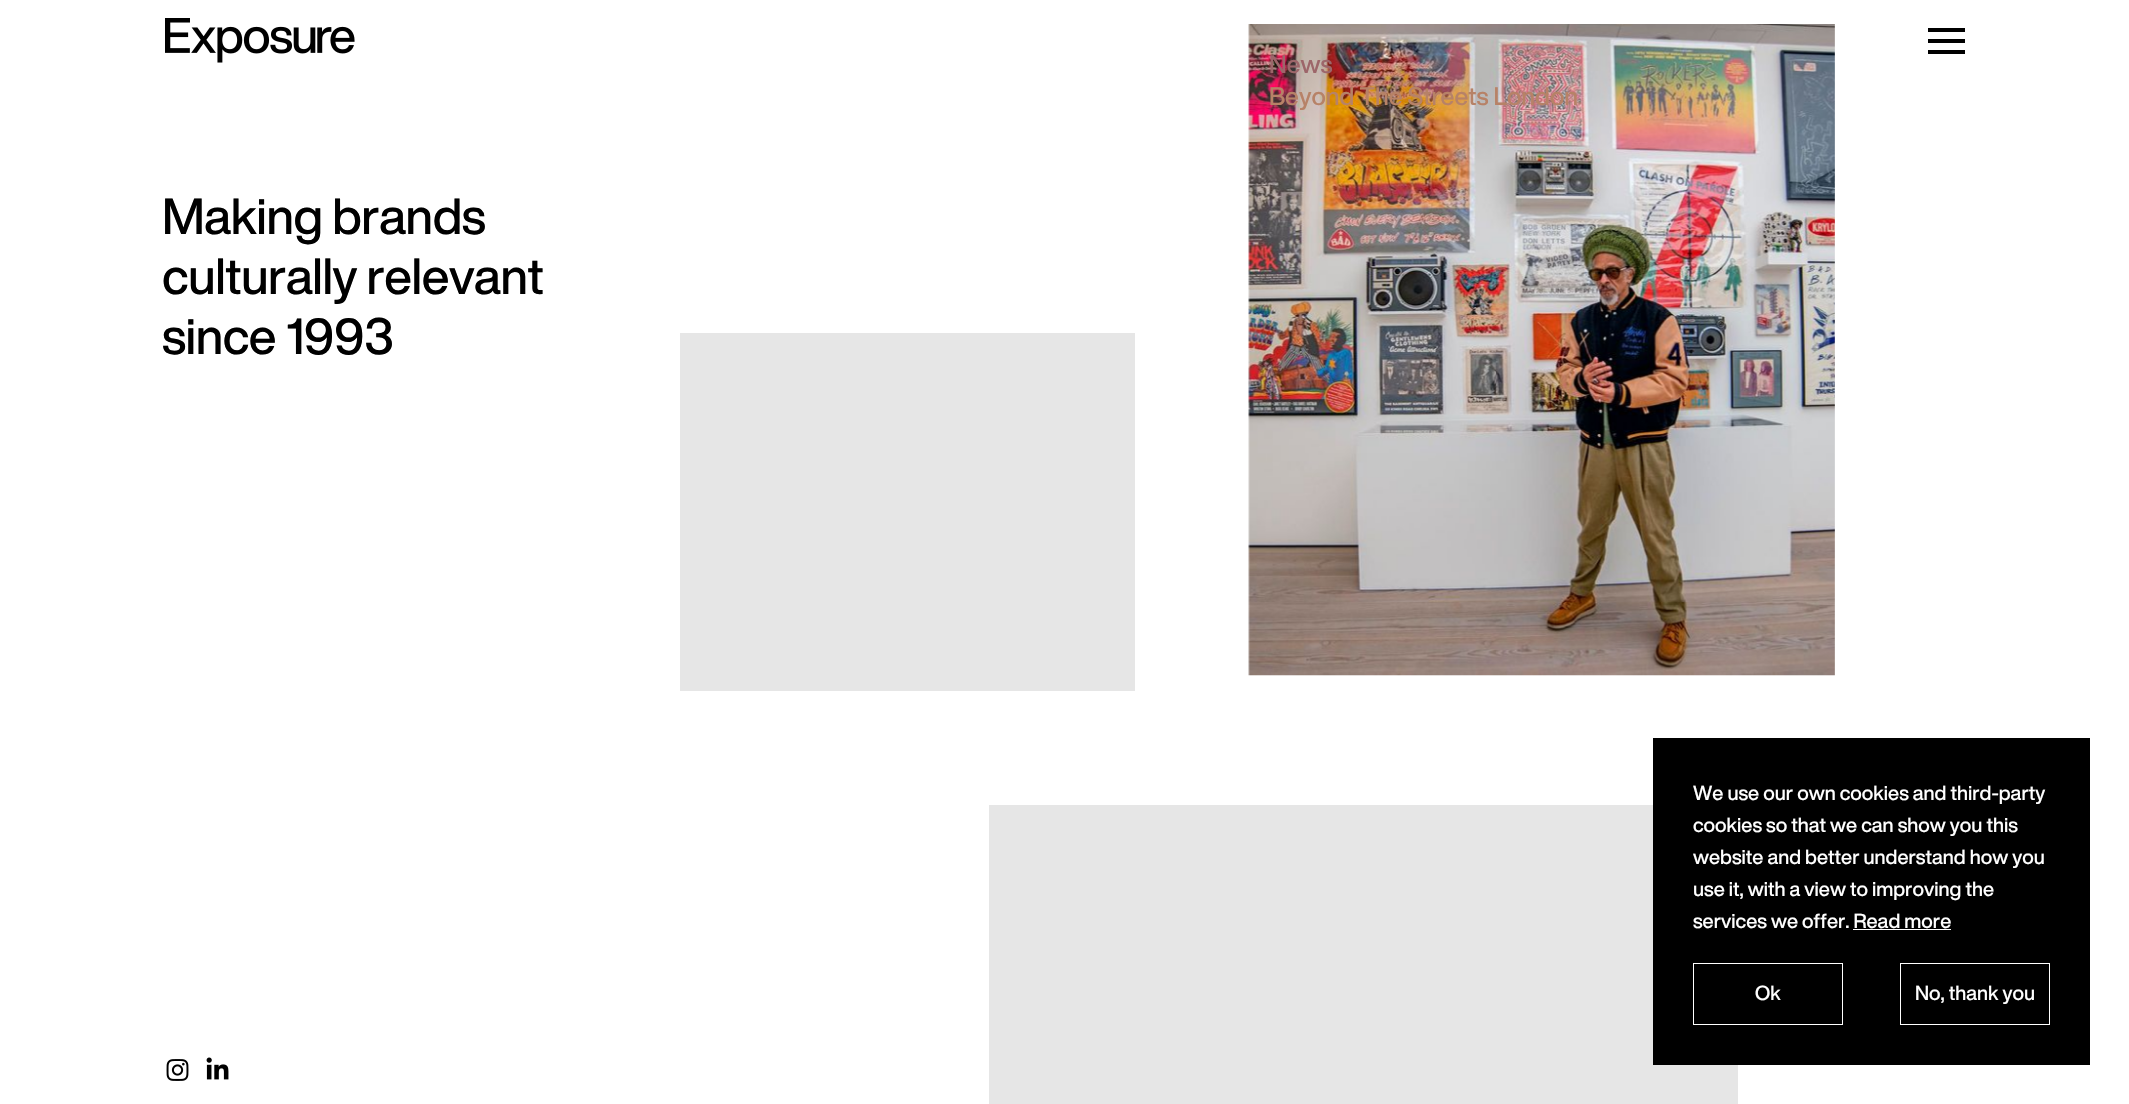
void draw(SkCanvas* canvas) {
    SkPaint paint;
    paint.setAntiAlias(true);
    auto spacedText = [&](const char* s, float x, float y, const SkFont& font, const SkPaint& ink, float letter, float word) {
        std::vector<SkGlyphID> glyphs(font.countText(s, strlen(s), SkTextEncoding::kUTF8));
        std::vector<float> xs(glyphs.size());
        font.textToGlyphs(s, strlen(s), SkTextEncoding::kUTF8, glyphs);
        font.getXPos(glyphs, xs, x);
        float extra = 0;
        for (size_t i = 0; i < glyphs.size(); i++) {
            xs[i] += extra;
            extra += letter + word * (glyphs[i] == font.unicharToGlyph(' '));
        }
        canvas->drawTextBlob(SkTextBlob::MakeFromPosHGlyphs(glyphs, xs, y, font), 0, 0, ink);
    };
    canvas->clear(0xFFFFFFFF);
    canvas->drawImageRect(SkImages::DeferredFromEncodedData(SkData::MakeFromFileName("img1.png")), SkRect::MakeXYWH(165, 18, 190, 45), SkSamplingOptions());
    paint.setColor(0xFF000000);
    canvas->drawRect(SkRect::MakeXYWH(1928, 28, 37, 4), paint);
    canvas->drawRect(SkRect::MakeXYWH(1928, 39, 37, 4), paint);
    canvas->drawRect(SkRect::MakeXYWH(1928, 50, 37, 4), paint);
    canvas->drawImageRect(SkImages::DeferredFromEncodedData(SkData::MakeFromFileName("img2.png")), SkRect::MakeXYWH(1248, 24, 587, 652), SkSamplingOptions());
    SkFont font1(fontMgr->matchFamilyStyle("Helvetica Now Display", SkFontStyle(500, SkFontStyle::kNormal_Width, SkFontStyle::kUpright_Slant)), 25);
    font1.setSubpixel(true);
    paint.setColor(0xFF9D666A);
    canvas->drawString("News", 1269, 73, font1, paint);
    paint.setColor(0xFFB78267);
    canvas->drawString("Beyond The Streets London", 1269, 105, font1, paint);
    paint.setColor(0xFFE6E6E6);
    canvas->drawRect(SkRect::MakeXYWH(680, 333, 455, 358), paint);
    canvas->drawRect(SkRect::MakeXYWH(989, 805, 749, 299), paint);
    SkFont font2(fontMgr->matchFamilyStyle("Helvetica Now Display", SkFontStyle(500, SkFontStyle::kNormal_Width, SkFontStyle::kUpright_Slant)), 50);
    font2.setSubpixel(true);
    paint.setColor(0xFF000000);
    spacedText("Making brands", 162, 234, font2, paint, -0.5f, 0);
    spacedText("culturally relevant", 162, 294, font2, paint, -0.5f, 0);
    spacedText("since 1993", 162, 354, font2, paint, -0.5f, 0);
    canvas->drawRect(SkRect::MakeXYWH(1653, 738, 437, 327), paint);
    SkFont font3(fontMgr->matchFamilyStyle("Helvetica Now Display", SkFontStyle(500, SkFontStyle::kNormal_Width, SkFontStyle::kUpright_Slant)), 20);
    font3.setSubpixel(true);
    paint.setColor(0xFFFFFFFF);
    canvas->drawString("We use our own cookies and third-party", 1693, 800, font3, paint);
    canvas->drawString("cookies so that we can show you this", 1693, 832, font3, paint);
    canvas->drawString("website and better understand how you", 1693, 864, font3, paint);
    canvas->drawString("use it, with a view to improving the", 1693, 896, font3, paint);
    canvas->drawString("services we offer. Read more", 1693, 928, font3, paint);
    canvas->drawRect(SkRect::MakeXYWH(1853, 929, 98, 1), paint);
    paint.setStyle(SkPaint::kStroke_Style);
    paint.setStrokeWidth(1);
    canvas->drawRect(SkRect::MakeXYWH(1693.5f, 963.5f, 149, 61), paint);
    paint.setStyle(SkPaint::kFill_Style);
    canvas->drawString("Ok", 1755, 1000, font3, paint);
    paint.setStyle(SkPaint::kStroke_Style);
    canvas->drawRect(SkRect::MakeXYWH(1900.5f, 963.5f, 149, 61), paint);
    paint.setStyle(SkPaint::kFill_Style);
    canvas->drawString("No, thank you", 1915, 1000, font3, paint);
    canvas->drawImageRect(SkImages::DeferredFromEncodedData(SkData::MakeFromFileName("img3.png")), SkRect::MakeXYWH(166, 1059, 23, 22), SkSamplingOptions());
    canvas->drawImageRect(SkImages::DeferredFromEncodedData(SkData::MakeFromFileName("img4.png")), SkRect::MakeXYWH(206, 1057, 23, 23), SkSamplingOptions());
}
